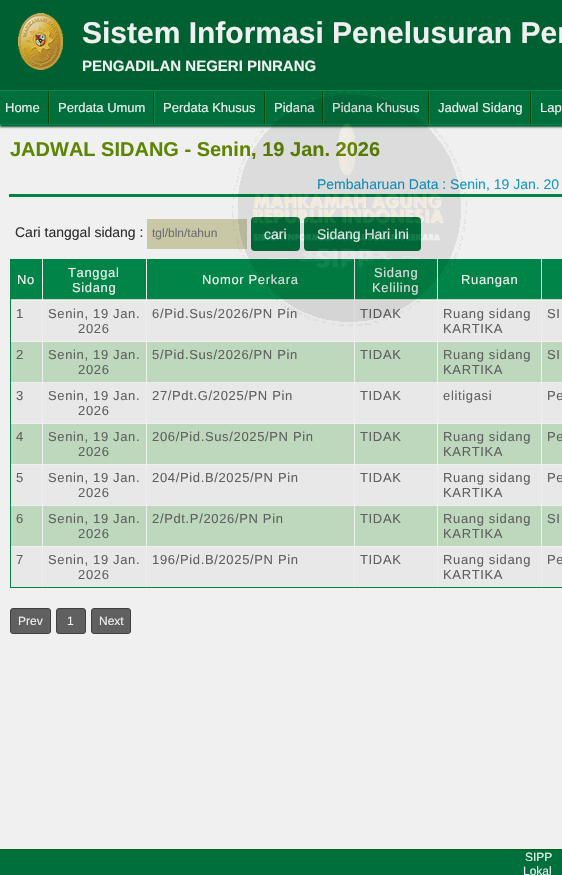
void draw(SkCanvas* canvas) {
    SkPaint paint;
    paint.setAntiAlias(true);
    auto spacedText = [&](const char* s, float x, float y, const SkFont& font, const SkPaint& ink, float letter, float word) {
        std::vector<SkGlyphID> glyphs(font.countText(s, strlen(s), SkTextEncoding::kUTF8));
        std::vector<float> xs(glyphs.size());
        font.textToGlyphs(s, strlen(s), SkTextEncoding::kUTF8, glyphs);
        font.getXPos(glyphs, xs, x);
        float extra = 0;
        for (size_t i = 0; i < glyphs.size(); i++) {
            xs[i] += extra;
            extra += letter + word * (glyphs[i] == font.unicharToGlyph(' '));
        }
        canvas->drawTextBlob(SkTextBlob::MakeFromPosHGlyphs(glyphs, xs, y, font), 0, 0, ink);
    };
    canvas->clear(0xFFF0F0F0);
    paint.setColor(0xFF006031);
    canvas->drawRect(SkRect::MakeXYWH(0, 0, 562, 90), paint);
    canvas->drawImageRect(SkImages::DeferredFromEncodedData(SkData::MakeFromFileName("img1.png")), SkRect::MakeXYWH(18, 13, 45, 57), SkSamplingOptions());
    SkFont font1(fontMgr->matchFamilyStyle("Liberation Sans", SkFontStyle::Bold()), 30);
    font1.setSubpixel(true);
    paint.setColor(0xFFF0F0F0);
    canvas->drawString("Sistem Informasi Penelusuran Per", 82, 43, font1, paint);
    SkFont font2(fontMgr->matchFamilyStyle("Liberation Sans", SkFontStyle::Bold()), 15);
    font2.setSubpixel(true);
    canvas->drawString("PENGADILAN NEGERI PINRANG", 82, 71, font2, paint);
    paint.setColor(0xFF00532C);
    paint.setMaskFilter(SkMaskFilter::MakeBlur(kNormal_SkBlurStyle, 1));
    canvas->drawRect(SkRect::MakeXYWH(0, 92, 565, 35), paint);
    paint.setMaskFilter(nullptr);
    paint.setColor(0xFF006F3C);
    canvas->drawRect(SkRect::MakeXYWH(50, 91, 512, 33), paint);
    paint.setColor(0xFF008547);
    canvas->drawPath(SkPathBuilder().moveTo(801, 125).lineTo(0, 125).lineTo(1, 124).lineTo(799, 124).close().detach(), paint);
    paint.setColor(0xFF044B00);
    canvas->drawRect(SkRect::MakeXYWH(264, 91, 1, 33), paint);
    SkFont font3(fontMgr->matchFamilyStyle("Liberation Sans", SkFontStyle::Normal()), 13);
    font3.setSubpixel(true);
    paint.setColor(0xFFF0F0F0);
    canvas->drawString("Perdata Khusus", 163, 112, font3, paint);
    paint.setColor(0xFF044B00);
    canvas->drawRect(SkRect::MakeXYWH(322, 91, 1, 33), paint);
    paint.setColor(0xFF008547);
    canvas->drawRect(SkRect::MakeXYWH(265, 91, 1, 33), paint);
    paint.setColor(0xFFF0F0F0);
    canvas->drawString("Pidana", 274, 112, font3, paint);
    paint.setColor(0xFF044B00);
    canvas->drawRect(SkRect::MakeXYWH(428, 91, 1, 33), paint);
    paint.setColor(0xFF008547);
    canvas->drawRect(SkRect::MakeXYWH(323, 91, 1, 33), paint);
    paint.setColor(0xFFF0F0F0);
    canvas->drawString("Pidana Khusus", 332, 112, font3, paint);
    paint.setColor(0xFF008547);
    canvas->drawRect(SkRect::MakeXYWH(429, 91, 1, 33), paint);
    paint.setColor(0xFFF0F0F0);
    canvas->drawString("Jadwal Sidang", 438, 112, font3, paint);
    SkFont font4(fontMgr->matchFamilyStyle("Liberation Sans", SkFontStyle::Bold()), 20);
    font4.setSubpixel(true);
    paint.setColor(0xFF5E8403);
    canvas->drawString("JADWAL SIDANG - Senin, 19 Jan. 2026", 10, 156, font4, paint);
    SkFont font5(fontMgr->matchFamilyStyle("Liberation Sans", SkFontStyle::Normal()), 14);
    font5.setSubpixel(true);
    paint.setColor(0xFF1698C2);
    canvas->drawString("Pembaharuan Data : Senin, 19 Jan. 20", 317, 189, font5, paint);
    paint.setColor(0xFF008447);
    canvas->drawRect(SkRect::MakeXYWH(9, 194, 553, 3), paint);
    paint.setColor(0xFFC8C8A7);
    canvas->drawRect(SkRect::MakeXYWH(147, 219, 100, 30), paint);
    paint.setColor(0xFF006F3C);
    canvas->drawRoundRect(SkRect::MakeXYWH(251, 217, 49, 34), 4, 4, paint);
    paint.setColor(0xFFF0F0F0);
    canvas->drawString("cari", 264, 239, font5, paint);
    paint.setColor(0xFF006F3C);
    canvas->drawRoundRect(SkRect::MakeXYWH(304, 217, 117, 34), 4, 4, paint);
    paint.setColor(0xFFF0F0F0);
    canvas->drawString("Sidang Hari Ini", 317, 239, font5, paint);
    paint.setStyle(SkPaint::kStroke_Style);
    paint.setStrokeWidth(1);
    paint.setColor(0xFF008447);
    canvas->drawRect(SkRect::MakeXYWH(10.5f, 259.5f, 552, 328), paint);
    paint.setStyle(SkPaint::kFill_Style);
    paint.setColor(0xFFBDD8BC);
    canvas->drawRect(SkRect::MakeXYWH(11, 299, 551, 1), paint);
    paint.setColor(0xFF008447);
    canvas->drawRect(SkRect::MakeXYWH(147, 260, 207, 39), paint);
    paint.setColor(0xFFF0F0F0);
    spacedText("Nomor Perkara", 202, 284, font3, paint, 0.65f, 0);
    paint.setColor(0xFF008447);
    canvas->drawRect(SkRect::MakeXYWH(355, 260, 82, 39), paint);
    paint.setColor(0xFFF0F0F0);
    spacedText("Sidang", 374, 277, font3, paint, 0.65f, 0);
    spacedText("Keliling", 372, 292, font3, paint, 0.65f, 0);
    paint.setColor(0xFF008447);
    canvas->drawRect(SkRect::MakeXYWH(438, 260, 103, 39), paint);
    paint.setColor(0xFFF0F0F0);
    spacedText("Ruangan", 461, 284, font3, paint, 0.65f, 0);
    paint.setColor(0xFFE8E8E8);
    canvas->drawRect(SkRect::MakeXYWH(11, 301, 551, 40), paint);
    paint.setColor(0xFF606060);
    spacedText("6/Pid.Sus/2026/PN Pin", 152, 318, font3, paint, 0.65f, 0);
    spacedText("TIDAK", 360, 318, font3, paint, 0.65f, 0);
    spacedText("Ruang sidang", 443, 318, font3, paint, 0.65f, 0);
    spacedText("KARTIKA", 443, 333, font3, paint, 0.65f, 0);
    paint.setColor(0xFFBDD8BC);
    canvas->drawRect(SkRect::MakeXYWH(11, 342, 551, 40), paint);
    paint.setColor(0xFFE8E8E8);
    canvas->drawRect(SkRect::MakeXYWH(11, 383, 551, 40), paint);
    paint.setColor(0xFFBDD8BC);
    canvas->drawRect(SkRect::MakeXYWH(11, 424, 551, 40), paint);
    paint.setColor(0xFFE8E8E8);
    canvas->drawRect(SkRect::MakeXYWH(11, 465, 551, 40), paint);
    paint.setColor(0xFFBDD8BC);
    canvas->drawRect(SkRect::MakeXYWH(11, 506, 551, 40), paint);
    paint.setColor(0xFFE8E8E8);
    canvas->drawRect(SkRect::MakeXYWH(11, 547, 551, 40), paint);
    paint.setColor(0xFFF0F0F0);
    canvas->drawRect(SkRect::MakeXYWH(354, 259, 1, 328), paint);
    canvas->drawRect(SkRect::MakeXYWH(437, 259, 1, 328), paint);
    canvas->drawImageRect(SkImages::DeferredFromEncodedData(SkData::MakeFromFileName("img2.png")), SkRect::MakeXYWH(232, 92, 235, 234), SkSamplingOptions());
    paint.setColor(0xFF008E4C);
    canvas->drawPath(SkPathBuilder().moveTo(0, 90).lineTo(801, 90).lineTo(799, 91).lineTo(1, 91).close().detach(), paint);
    paint.setColor(0xFF008547);
    canvas->drawRect(SkRect::MakeXYWH(0, 90, 1, 35), paint);
    paint.setColor(0xFF006F3C);
    canvas->drawRect(SkRect::MakeXYWH(0, 91, 48, 33), paint);
    paint.setColor(0xFF044B00);
    canvas->drawRect(SkRect::MakeXYWH(48, 91, 1, 33), paint);
    paint.setColor(0xFFF0F0F0);
    canvas->drawString("Home", 5, 112, font3, paint);
    paint.setColor(0xFF044B00);
    canvas->drawRect(SkRect::MakeXYWH(153, 91, 1, 33), paint);
    paint.setColor(0xFF008547);
    canvas->drawRect(SkRect::MakeXYWH(49, 91, 1, 33), paint);
    paint.setColor(0xFFF0F0F0);
    canvas->drawString("Perdata Umum", 58, 112, font3, paint);
    paint.setColor(0xFF008547);
    canvas->drawRect(SkRect::MakeXYWH(154, 91, 1, 33), paint);
    paint.setColor(0xFF044B00);
    canvas->drawRect(SkRect::MakeXYWH(530, 91, 1, 33), paint);
    paint.setColor(0xFF008547);
    canvas->drawRect(SkRect::MakeXYWH(531, 91, 1, 33), paint);
    paint.setColor(0xFFF0F0F0);
    canvas->drawString("Lap", 540, 112, font3, paint);
    paint.setColor(0xFF303030);
    canvas->drawString("Cari tanggal sidang :", 15, 237, font5, paint);
    SkFont font6(fontMgr->matchFamilyStyle("Liberation Sans", SkFontStyle::Normal()), 12);
    font6.setSubpixel(true);
    paint.setColor(0xFF6E6E6E);
    canvas->drawString("tgl/bln/tahun", 152, 237, font6, paint);
    paint.setColor(0xFF008447);
    canvas->drawRect(SkRect::MakeXYWH(11, 260, 31, 39), paint);
    paint.setColor(0xFFF0F0F0);
    spacedText("No", 17, 284, font3, paint, 0.65f, 0);
    paint.setColor(0xFF008447);
    canvas->drawRect(SkRect::MakeXYWH(43, 260, 103, 39), paint);
    paint.setColor(0xFFF0F0F0);
    spacedText("Tanggal", 68, 277, font3, paint, 0.65f, 0);
    spacedText("Sidang", 72, 292, font3, paint, 0.65f, 0);
    paint.setColor(0xFF008447);
    canvas->drawRect(SkRect::MakeXYWH(542, 260, 20, 39), paint);
    paint.setColor(0xFF606060);
    spacedText("1", 16, 318, font3, paint, 0.65f, 0);
    spacedText("Senin, 19 Jan.", 48, 318, font3, paint, 0.65f, 0);
    spacedText("2026", 78, 333, font3, paint, 0.65f, 0);
    spacedText("SI", 547, 318, font3, paint, 0.65f, 0);
    spacedText("2", 16, 359, font3, paint, 0.65f, 0);
    spacedText("Senin, 19 Jan.", 48, 359, font3, paint, 0.65f, 0);
    spacedText("2026", 78, 374, font3, paint, 0.65f, 0);
    spacedText("5/Pid.Sus/2026/PN Pin", 152, 359, font3, paint, 0.65f, 0);
    spacedText("TIDAK", 360, 359, font3, paint, 0.65f, 0);
    spacedText("Ruang sidang", 443, 359, font3, paint, 0.65f, 0);
    spacedText("KARTIKA", 443, 374, font3, paint, 0.65f, 0);
    spacedText("SI", 547, 359, font3, paint, 0.65f, 0);
    spacedText("3", 16, 400, font3, paint, 0.65f, 0);
    spacedText("Senin, 19 Jan.", 48, 400, font3, paint, 0.65f, 0);
    spacedText("2026", 78, 415, font3, paint, 0.65f, 0);
    spacedText("27/Pdt.G/2025/PN Pin", 152, 400, font3, paint, 0.65f, 0);
    spacedText("TIDAK", 360, 400, font3, paint, 0.65f, 0);
    spacedText("elitigasi", 443, 400, font3, paint, 0.65f, 0);
    spacedText("Pe", 547, 400, font3, paint, 0.65f, 0);
    spacedText("4", 16, 441, font3, paint, 0.65f, 0);
    spacedText("Senin, 19 Jan.", 48, 441, font3, paint, 0.65f, 0);
    spacedText("2026", 78, 456, font3, paint, 0.65f, 0);
    spacedText("206/Pid.Sus/2025/PN Pin", 152, 441, font3, paint, 0.65f, 0);
    spacedText("TIDAK", 360, 441, font3, paint, 0.65f, 0);
    spacedText("Ruang sidang", 443, 441, font3, paint, 0.65f, 0);
    spacedText("KARTIKA", 443, 456, font3, paint, 0.65f, 0);
    spacedText("Pe", 547, 441, font3, paint, 0.65f, 0);
    spacedText("5", 16, 482, font3, paint, 0.65f, 0);
    spacedText("Senin, 19 Jan.", 48, 482, font3, paint, 0.65f, 0);
    spacedText("2026", 78, 497, font3, paint, 0.65f, 0);
    spacedText("204/Pid.B/2025/PN Pin", 152, 482, font3, paint, 0.65f, 0);
    spacedText("TIDAK", 360, 482, font3, paint, 0.65f, 0);
    spacedText("Ruang sidang", 443, 482, font3, paint, 0.65f, 0);
    spacedText("KARTIKA", 443, 497, font3, paint, 0.65f, 0);
    spacedText("Pe", 547, 482, font3, paint, 0.65f, 0);
    spacedText("6", 16, 523, font3, paint, 0.65f, 0);
    spacedText("Senin, 19 Jan.", 48, 523, font3, paint, 0.65f, 0);
    spacedText("2026", 78, 538, font3, paint, 0.65f, 0);
    spacedText("2/Pdt.P/2026/PN Pin", 152, 523, font3, paint, 0.65f, 0);
    spacedText("TIDAK", 360, 523, font3, paint, 0.65f, 0);
    spacedText("Ruang sidang", 443, 523, font3, paint, 0.65f, 0);
    spacedText("KARTIKA", 443, 538, font3, paint, 0.65f, 0);
    spacedText("SI", 547, 523, font3, paint, 0.65f, 0);
    paint.setColor(0xFFF0F0F0);
    canvas->drawRect(SkRect::MakeXYWH(42, 259, 1, 328), paint);
    paint.setColor(0xFF606060);
    spacedText("7", 16, 564, font3, paint, 0.65f, 0);
    paint.setColor(0xFFF0F0F0);
    canvas->drawRect(SkRect::MakeXYWH(146, 259, 1, 328), paint);
    paint.setColor(0xFF606060);
    spacedText("Senin, 19 Jan.", 48, 564, font3, paint, 0.65f, 0);
    spacedText("2026", 78, 579, font3, paint, 0.65f, 0);
    spacedText("196/Pid.B/2025/PN Pin", 152, 564, font3, paint, 0.65f, 0);
    spacedText("TIDAK", 360, 564, font3, paint, 0.65f, 0);
    paint.setColor(0xFFF0F0F0);
    canvas->drawRect(SkRect::MakeXYWH(541, 259, 1, 328), paint);
    paint.setColor(0xFF606060);
    spacedText("Ruang sidang", 443, 564, font3, paint, 0.65f, 0);
    spacedText("KARTIKA", 443, 579, font3, paint, 0.65f, 0);
    spacedText("Pe", 547, 564, font3, paint, 0.65f, 0);
    canvas->drawRoundRect(SkRect::MakeXYWH(10.5f, 608.5f, 40, 25), 2.5f, 2.5f, paint);
    paint.setStyle(SkPaint::kStroke_Style);
    paint.setColor(0xFF404040);
    canvas->drawRoundRect(SkRect::MakeXYWH(10.5f, 608.5f, 40, 25), 2.5f, 2.5f, paint);
    paint.setStyle(SkPaint::kFill_Style);
    paint.setColor(0xFFF0F0F0);
    canvas->drawString("Prev", 18, 625, font6, paint);
    paint.setColor(0xFF606060);
    canvas->drawRoundRect(SkRect::MakeXYWH(56.5f, 608.5f, 29, 25), 2.5f, 2.5f, paint);
    paint.setStyle(SkPaint::kStroke_Style);
    paint.setColor(0xFF404040);
    canvas->drawRoundRect(SkRect::MakeXYWH(56.5f, 608.5f, 29, 25), 2.5f, 2.5f, paint);
    paint.setStyle(SkPaint::kFill_Style);
    paint.setColor(0xFFF0F0F0);
    canvas->drawString("1", 67, 625, font6, paint);
    paint.setColor(0xFF606060);
    canvas->drawRoundRect(SkRect::MakeXYWH(91.5f, 608.5f, 39, 25), 2.5f, 2.5f, paint);
    paint.setStyle(SkPaint::kStroke_Style);
    paint.setColor(0xFF404040);
    canvas->drawRoundRect(SkRect::MakeXYWH(91.5f, 608.5f, 39, 25), 2.5f, 2.5f, paint);
    paint.setStyle(SkPaint::kFill_Style);
    paint.setColor(0xFFF0F0F0);
    canvas->drawString("Next", 99, 625, font6, paint);
    paint.setColor(0xFF006F3C);
    canvas->drawRect(SkRect::MakeXYWH(0, 850, 562, 25), paint);
    paint.setColor(0xFF006413);
    canvas->drawRect(SkRect::MakeXYWH(0, 849, 562, 1), paint);
    paint.setColor(0xFFF0F0F0);
    canvas->drawString("SIPP", 525, 861, font6, paint);
    canvas->drawString("Lokal", 523, 875, font6, paint);
}
